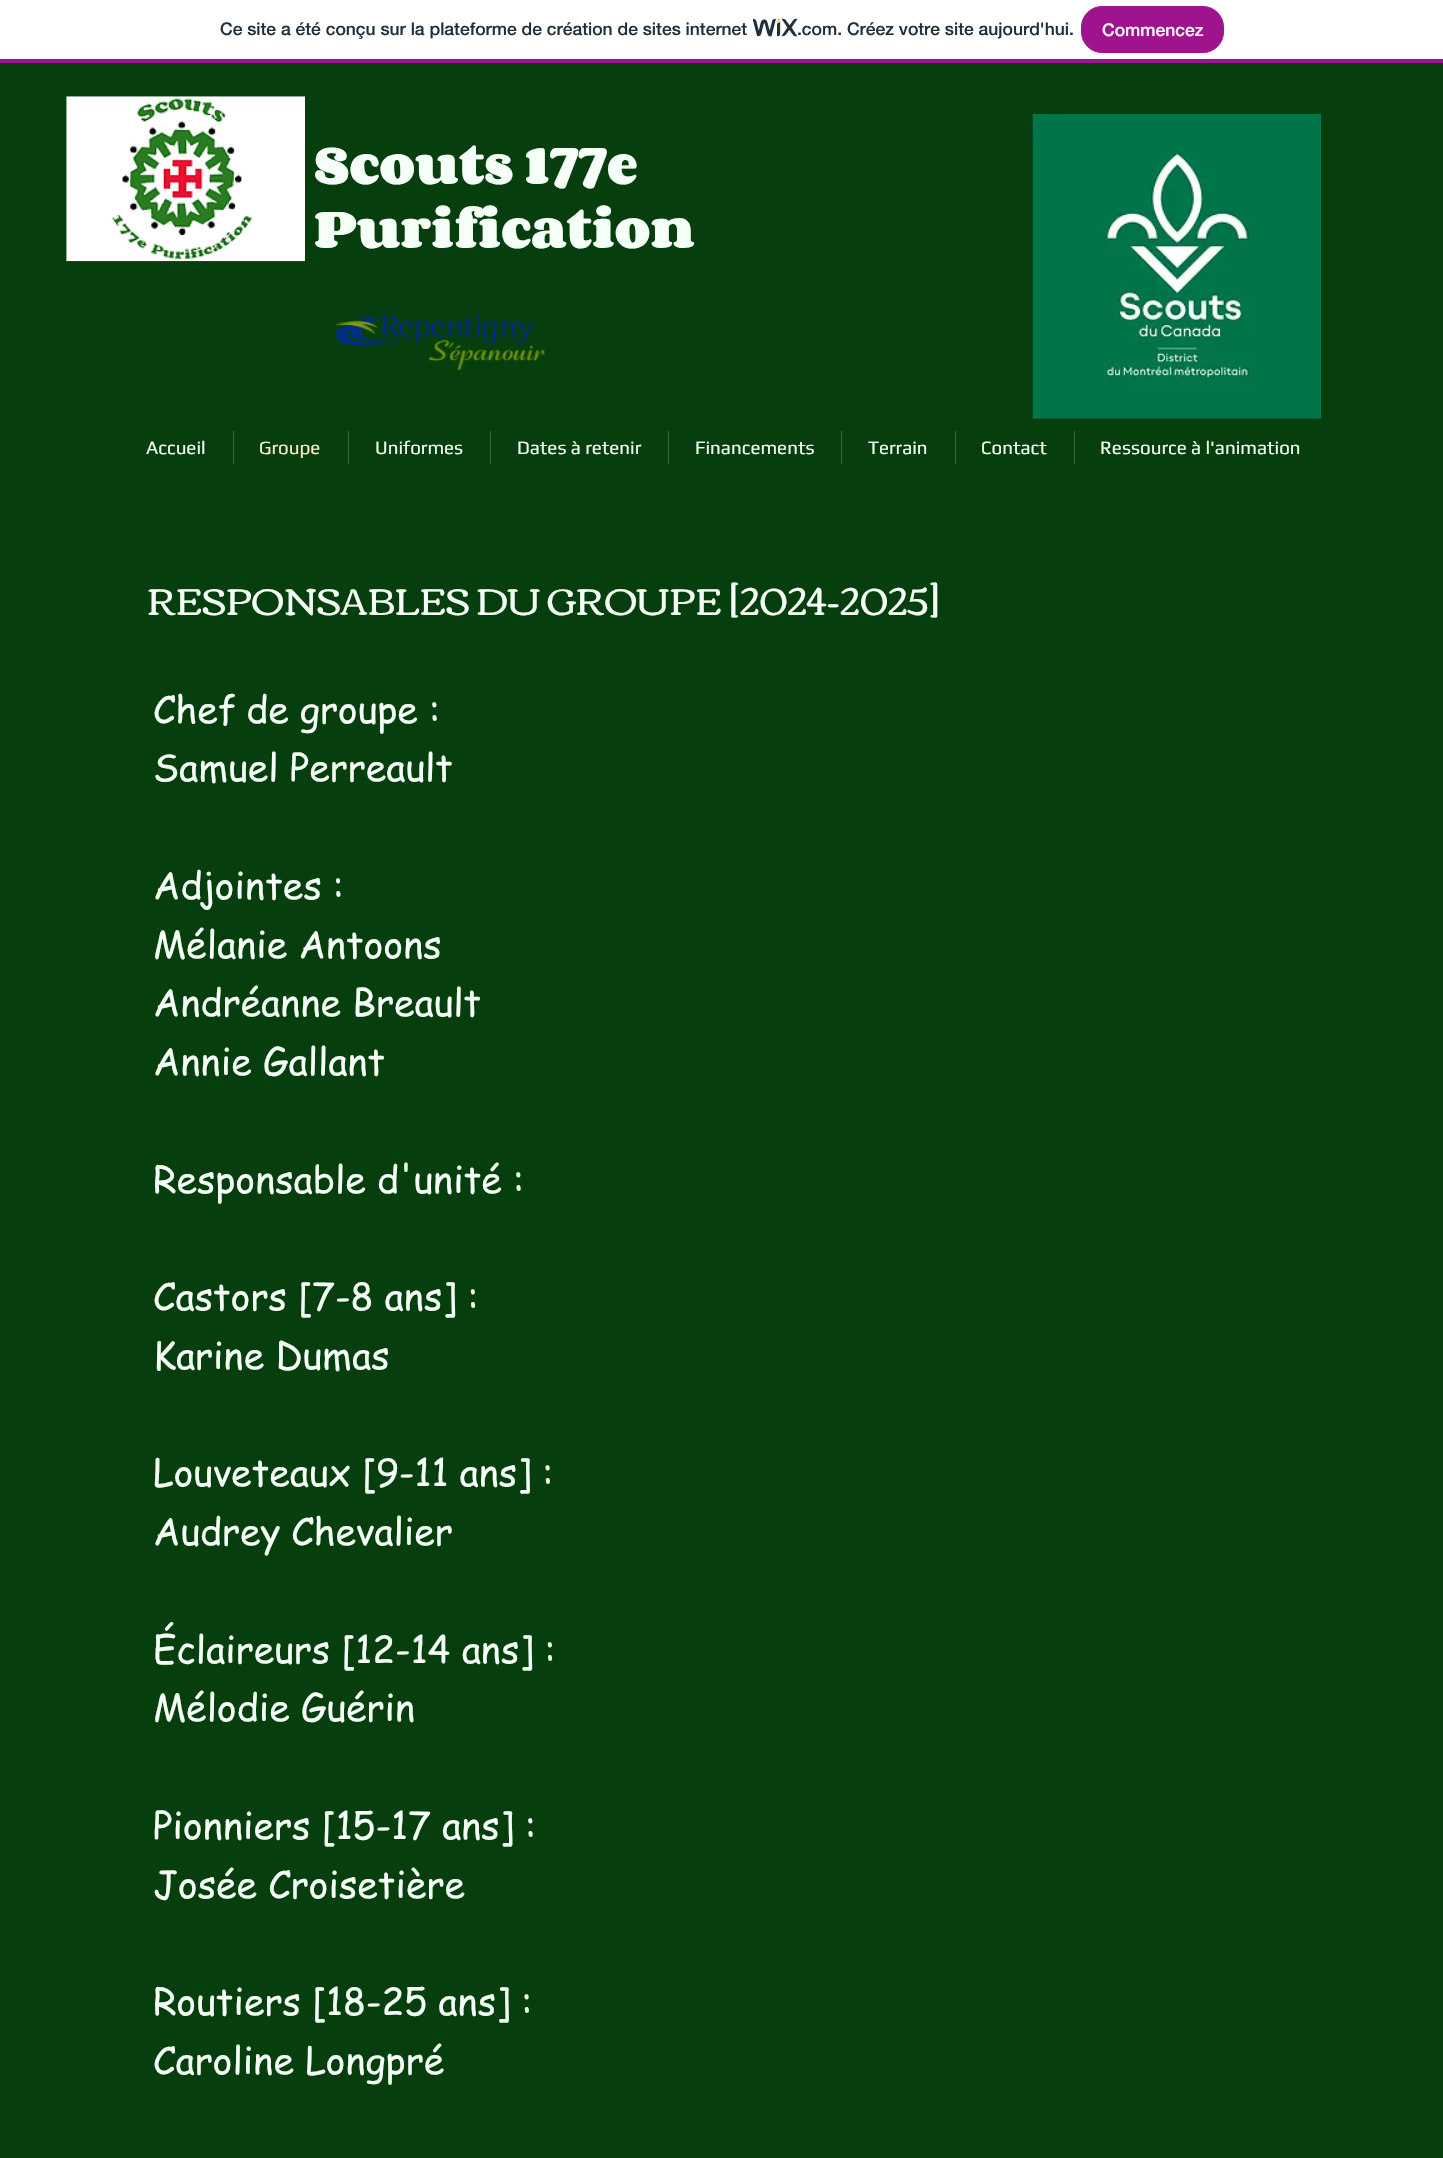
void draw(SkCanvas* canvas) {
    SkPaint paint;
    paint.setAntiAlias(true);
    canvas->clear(0xFFFFFFFF);
    paint.setColor(0xFFA0138E);
    canvas->drawRect(SkRect::MakeXYWH(0, 59, 1443, 4), paint);
    SkFont font1(fontMgr->matchFamilyStyle("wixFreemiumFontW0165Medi", SkFontStyle(500, SkFontStyle::kNormal_Width, SkFontStyle::kUpright_Slant)), 17.5f);
    font1.setSubpixel(true);
    paint.setColor(0xFF20303C);
    canvas->drawString("Ce site a été conçu sur la plateforme de création de sites internet", 220, 35, font1, paint);
    canvas->drawImageRect(SkImages::DeferredFromEncodedData(SkData::MakeFromFileName("img1.png")), SkRect::MakeXYWH(753, 18, 45, 19), SkSamplingOptions());
    canvas->drawString(".com. Créez votre site aujourd'hui.", 797, 35, font1, paint);
    paint.setColor(0xFFA0138E);
    canvas->drawRoundRect(SkRect::MakeXYWH(1081.5f, 6.5f, 142, 46), 20.5f, 20.5f, paint);
    paint.setStyle(SkPaint::kStroke_Style);
    paint.setStrokeWidth(1);
    canvas->drawRoundRect(SkRect::MakeXYWH(1081.5f, 6.5f, 142, 46), 20.5f, 20.5f, paint);
    paint.setStyle(SkPaint::kFill_Style);
    paint.setColor(0xFFFFFFFF);
    canvas->drawString("Commencez", 1102, 36, font1, paint);
    paint.setColor(0xFF063F0D);
    canvas->drawRect(SkRect::MakeXYWH(0, 63, 1443, 2095), paint);
    canvas->drawImageRect(SkImages::DeferredFromEncodedData(SkData::MakeFromFileName("img2.png")), SkRect::MakeXYWH(66, 96, 239, 166), SkSamplingOptions());
    SkFont font2(fontMgr->matchFamilyStyle("Corben", SkFontStyle::Bold()), 46.25f);
    font2.setSubpixel(true);
    paint.setColor(0xFFF5FFF7);
    canvas->drawString("Scouts 177e", 314, 184, font2, paint);
    canvas->drawString("Purification", 314, 248, font2, paint);
    canvas->drawImageRect(SkImages::DeferredFromEncodedData(SkData::MakeFromFileName("img3.png")), SkRect::MakeXYWH(1032, 114, 289, 305), SkSamplingOptions());
    canvas->drawImageRect(SkImages::DeferredFromEncodedData(SkData::MakeFromFileName("img4.png")), SkRect::MakeXYWH(335, 315, 210, 55), SkSamplingOptions());
    SkFont font3(fontMgr->matchFamilyStyle("Play", SkFontStyle::Normal()), 18.75f);
    font3.setSubpixel(true);
    canvas->drawString("Accueil", 146, 454, font3, paint);
    paint.setColor(0xFF38653D);
    canvas->drawRect(SkRect::MakeXYWH(233, 431, 1, 33), paint);
    paint.setColor(0xFFFDEBC9);
    canvas->drawString("Groupe", 259, 454, font3, paint);
    paint.setColor(0xFF38653D);
    canvas->drawRect(SkRect::MakeXYWH(348, 431, 1, 33), paint);
    paint.setColor(0xFFF5FFF7);
    canvas->drawString("Uniformes", 375, 454, font3, paint);
    paint.setColor(0xFF38653D);
    canvas->drawRect(SkRect::MakeXYWH(490, 431, 1, 33), paint);
    paint.setColor(0xFFF5FFF7);
    canvas->drawString("Dates à retenir", 517, 454, font3, paint);
    paint.setColor(0xFF38653D);
    canvas->drawRect(SkRect::MakeXYWH(668, 431, 1, 33), paint);
    paint.setColor(0xFFF5FFF7);
    canvas->drawString("Financements", 695, 454, font3, paint);
    paint.setColor(0xFF38653D);
    canvas->drawRect(SkRect::MakeXYWH(841, 431, 1, 33), paint);
    paint.setColor(0xFFF5FFF7);
    canvas->drawString("Terrain", 868, 454, font3, paint);
    paint.setColor(0xFF38653D);
    canvas->drawRect(SkRect::MakeXYWH(955, 431, 1, 33), paint);
    paint.setColor(0xFFF5FFF7);
    canvas->drawString("Contact", 981, 454, font3, paint);
    paint.setColor(0xFF38653D);
    canvas->drawRect(SkRect::MakeXYWH(1074, 431, 1, 33), paint);
    paint.setColor(0xFFF5FFF7);
    canvas->drawString("Ressource à l'animation", 1100, 454, font3, paint);
    SkFont font4(fontMgr->matchFamilyStyle("Corben", SkFontStyle::Normal()), 37.5f);
    font4.setSubpixel(true);
    canvas->drawString("RESPONSABLES DU GROUPE [2024-2025]", 147, 615, font4, paint);
    SkFont font5(fontMgr->matchFamilyStyle("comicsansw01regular", SkFontStyle::Normal()), 37.5f);
    font5.setSubpixel(true);
    canvas->drawString("Chef de groupe :", 153, 723, font5, paint);
    canvas->drawString("Samuel Perreault", 153, 781, font5, paint);
    canvas->drawString("Adjointes :", 153, 899, font5, paint);
    canvas->drawString("Mélanie Antoons", 153, 958, font5, paint);
    canvas->drawString("Andréanne Breault", 153, 1016, font5, paint);
    canvas->drawString("Annie Gallant", 153, 1075, font5, paint);
    canvas->drawString("Responsable d'unité :", 153, 1193, font5, paint);
    canvas->drawString("Castors [7-8 ans] :", 153, 1310, font5, paint);
    canvas->drawString("Karine Dumas", 153, 1369, font5, paint);
    canvas->drawString("Louveteaux [9-11 ans] :", 153, 1486, font5, paint);
    canvas->drawString("Audrey Chevalier", 153, 1545, font5, paint);
    canvas->drawString("Éclaireurs [12-14 ans] :", 153, 1663, font5, paint);
    canvas->drawString("Mélodie Guérin", 153, 1721, font5, paint);
    canvas->drawString("Pionniers [15-17 ans] :", 153, 1839, font5, paint);
    canvas->drawString("Josée Croisetière", 153, 1898, font5, paint);
    canvas->drawString("Routiers [18-25 ans] :", 153, 2015, font5, paint);
    canvas->drawString("Caroline Longpré", 153, 2074, font5, paint);
}
